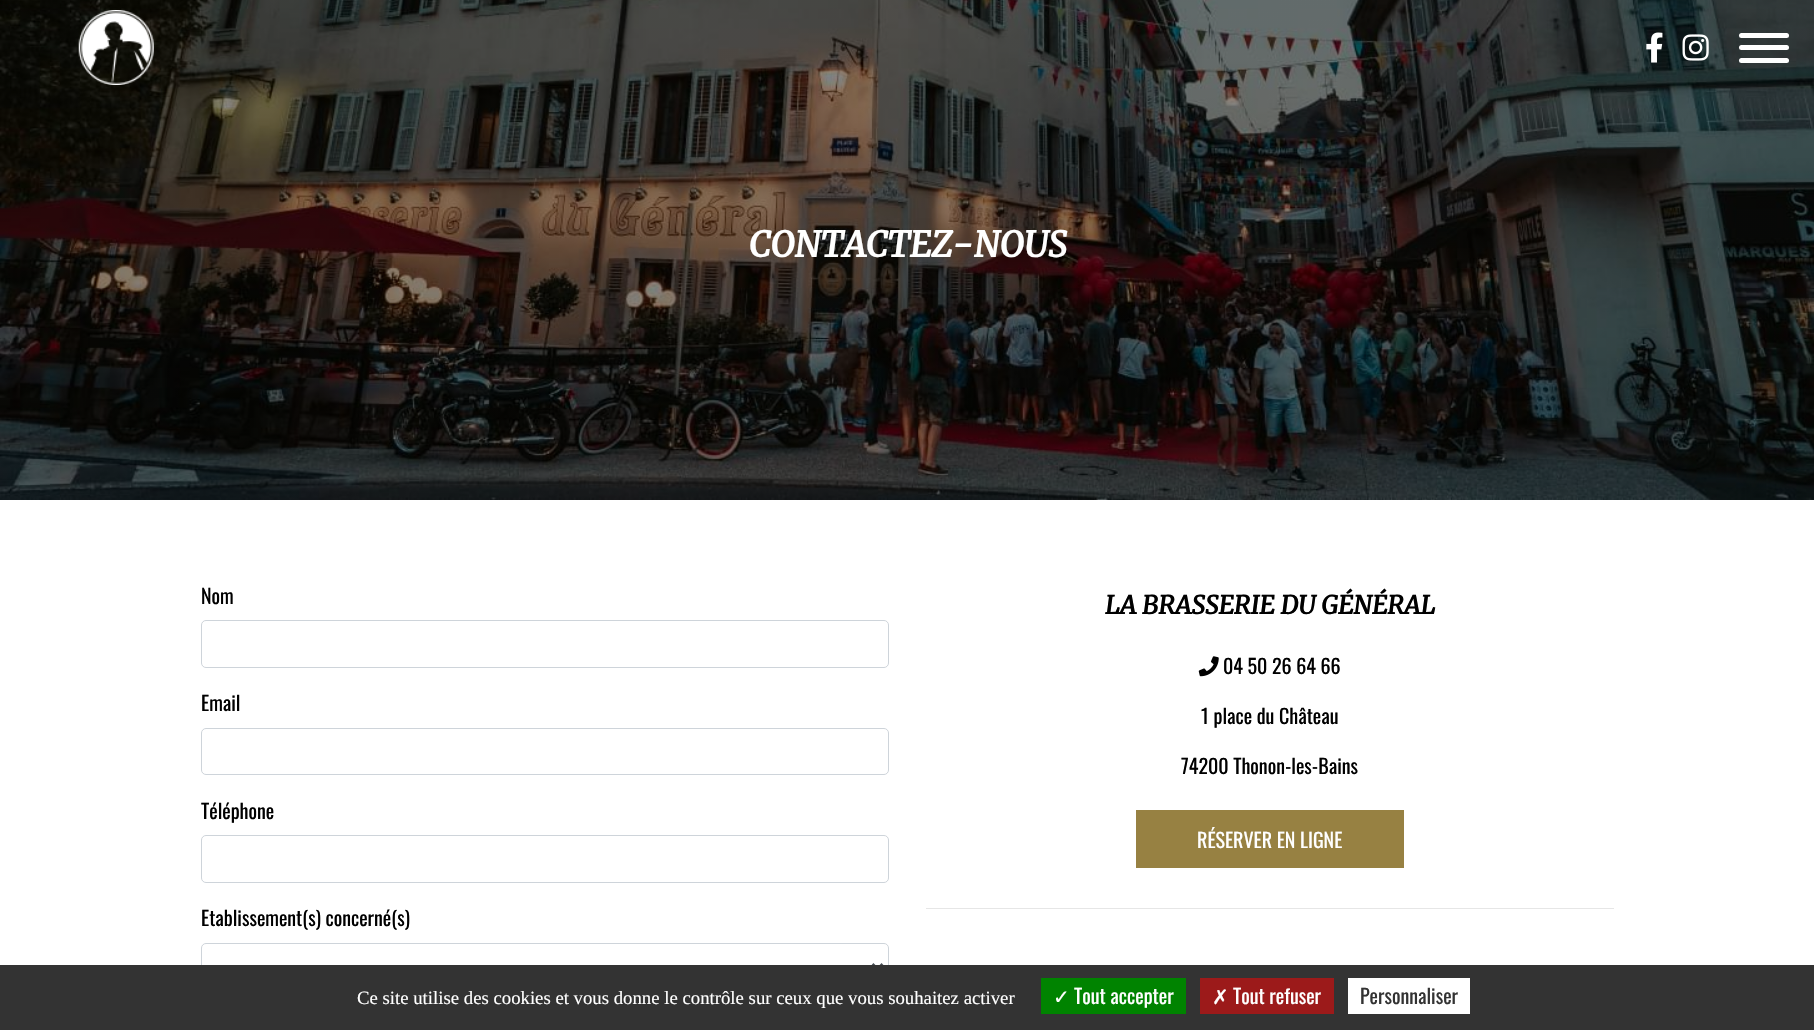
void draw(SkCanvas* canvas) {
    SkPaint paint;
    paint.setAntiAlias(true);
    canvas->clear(0xFFFFFFFF);
    canvas->drawImageRect(SkImages::DeferredFromEncodedData(SkData::MakeFromFileName("img1.png")), SkRect::MakeXYWH(0, 0, 1814, 500), SkSamplingOptions());
    canvas->drawImageRect(SkImages::DeferredFromEncodedData(SkData::MakeFromFileName("img2.png")), SkRect::MakeXYWH(78, 10, 76, 75), SkSamplingOptions());
    canvas->drawImageRect(SkImages::DeferredFromEncodedData(SkData::MakeFromFileName("img3.png")), SkRect::MakeXYWH(1646, 32, 17, 31), SkSamplingOptions());
    canvas->drawImageRect(SkImages::DeferredFromEncodedData(SkData::MakeFromFileName("img4.png")), SkRect::MakeXYWH(1682, 34, 27, 27), SkSamplingOptions());
    paint.setColor(0xFFFFFFFF);
    canvas->drawRoundRect(SkRect::MakeXYWH(1739, 33, 50, 5), 2.5f, 2.5f, paint);
    canvas->drawRoundRect(SkRect::MakeXYWH(1739, 45, 50, 5), 2.5f, 2.5f, paint);
    canvas->drawRoundRect(SkRect::MakeXYWH(1739, 58, 50, 5), 2.5f, 2.5f, paint);
    SkFont font1(fontMgr->matchFamilyStyle("Merriweather", SkFontStyle::BoldItalic()), 35);
    font1.setSubpixel(true);
    canvas->drawString("CONTACTEZ-NOUS", 749, 257, font1, paint);
    SkFont font2(fontMgr->matchFamilyStyle("Oswald", SkFontStyle::Normal()), 20);
    font2.setSubpixel(true);
    paint.setColor(0xFF000000);
    canvas->drawString("Nom", 201, 604, font2, paint);
    paint.setStyle(SkPaint::kStroke_Style);
    paint.setStrokeWidth(1);
    paint.setColor(0xFFCED4DA);
    canvas->drawRoundRect(SkRect::MakeXYWH(201.5f, 620.5f, 687, 47), 4.5f, 4.5f, paint);
    paint.setStyle(SkPaint::kFill_Style);
    paint.setColor(0xFF000000);
    canvas->drawString("Email", 201, 711, font2, paint);
    paint.setStyle(SkPaint::kStroke_Style);
    paint.setColor(0xFFCED4DA);
    canvas->drawRoundRect(SkRect::MakeXYWH(201.5f, 728.5f, 687, 46), 4.5f, 4.5f, paint);
    paint.setStyle(SkPaint::kFill_Style);
    paint.setColor(0xFF000000);
    canvas->drawString("Téléphone", 201, 819, font2, paint);
    paint.setStyle(SkPaint::kStroke_Style);
    paint.setColor(0xFFCED4DA);
    canvas->drawRoundRect(SkRect::MakeXYWH(201.5f, 835.5f, 687, 47), 4.5f, 4.5f, paint);
    paint.setStyle(SkPaint::kFill_Style);
    paint.setColor(0xFF000000);
    canvas->drawString("Etablissement(s) concerné(s)", 201, 926, font2, paint);
    paint.setStyle(SkPaint::kStroke_Style);
    paint.setColor(0xFFCED4DA);
    canvas->drawRoundRect(SkRect::MakeXYWH(201.5f, 943.5f, 687, 46), 4.5f, 4.5f, paint);
    paint.setStrokeWidth(2.5f);
    paint.setColor(0xFF495057);
    canvas->drawPath(SkPathBuilder().moveTo(872.5f, 964).lineTo(877.5f, 969).lineTo(882.5f, 964).detach(), paint);
    SkFont font3(fontMgr->matchFamilyStyle("Merriweather", SkFontStyle::BoldItalic()), 25);
    font3.setSubpixel(true);
    paint.setStyle(SkPaint::kFill_Style);
    paint.setColor(0xFF000000);
    canvas->drawString("LA BRASSERIE DU GÉNÉRAL", 1105, 614, font3, paint);
    canvas->drawImageRect(SkImages::DeferredFromEncodedData(SkData::MakeFromFileName("img5.png")), SkRect::MakeXYWH(1198, 656, 21, 21), SkSamplingOptions());
    canvas->drawString("04 50 26 64 66", 1223, 674, font2, paint);
    canvas->drawString("1 place du Château", 1201, 724, font2, paint);
    canvas->drawString("74200 Thonon-les-Bains", 1181, 774, font2, paint);
    paint.setColor(0xFF978142);
    canvas->drawRect(SkRect::MakeXYWH(1136, 810, 268, 58), paint);
    paint.setColor(0xFFFFFFFF);
    canvas->drawString("RÉSERVER EN LIGNE", 1197, 848, font2, paint);
    paint.setColor(0xFFE6E6E6);
    canvas->drawRect(SkRect::MakeXYWH(926, 908, 688, 1), paint);
    paint.setColor(0xFF333333);
    canvas->drawRect(SkRect::MakeXYWH(0, 965, 1814, 65), paint);
    SkFont font4(fontMgr->matchFamilyStyle("Liberation Serif", SkFontStyle::Normal()), 18.75f);
    font4.setSubpixel(true);
    paint.setColor(0xFFFFFFFF);
    canvas->drawString("Ce site utilise des cookies et vous donne le contrôle sur ceux que vous souhaitez activer", 357, 1004, font4, paint);
    paint.setColor(0xFF008300);
    canvas->drawRect(SkRect::MakeXYWH(1041, 978, 145, 36), paint);
    SkFont font5(fontMgr->matchFamilyStyle("DejaVu Sans", SkFontStyle::Normal()), 20);
    font5.setSubpixel(true);
    paint.setColor(0xFFFFFFFF);
    canvas->drawString("✓", 1053, 1004, font5, paint);
    canvas->drawString("Tout accepter", 1074, 1004, font2, paint);
    paint.setColor(0xFF9C1A1A);
    canvas->drawRect(SkRect::MakeXYWH(1200, 978, 134, 36), paint);
    paint.setColor(0xFFFFFFFF);
    canvas->drawString("✗", 1212, 1004, font5, paint);
    canvas->drawString("Tout refuser", 1233, 1004, font2, paint);
    canvas->drawRect(SkRect::MakeXYWH(1348, 978, 122, 36), paint);
    paint.setColor(0xFF333333);
    canvas->drawString("Personnaliser", 1360, 1004, font2, paint);
}
